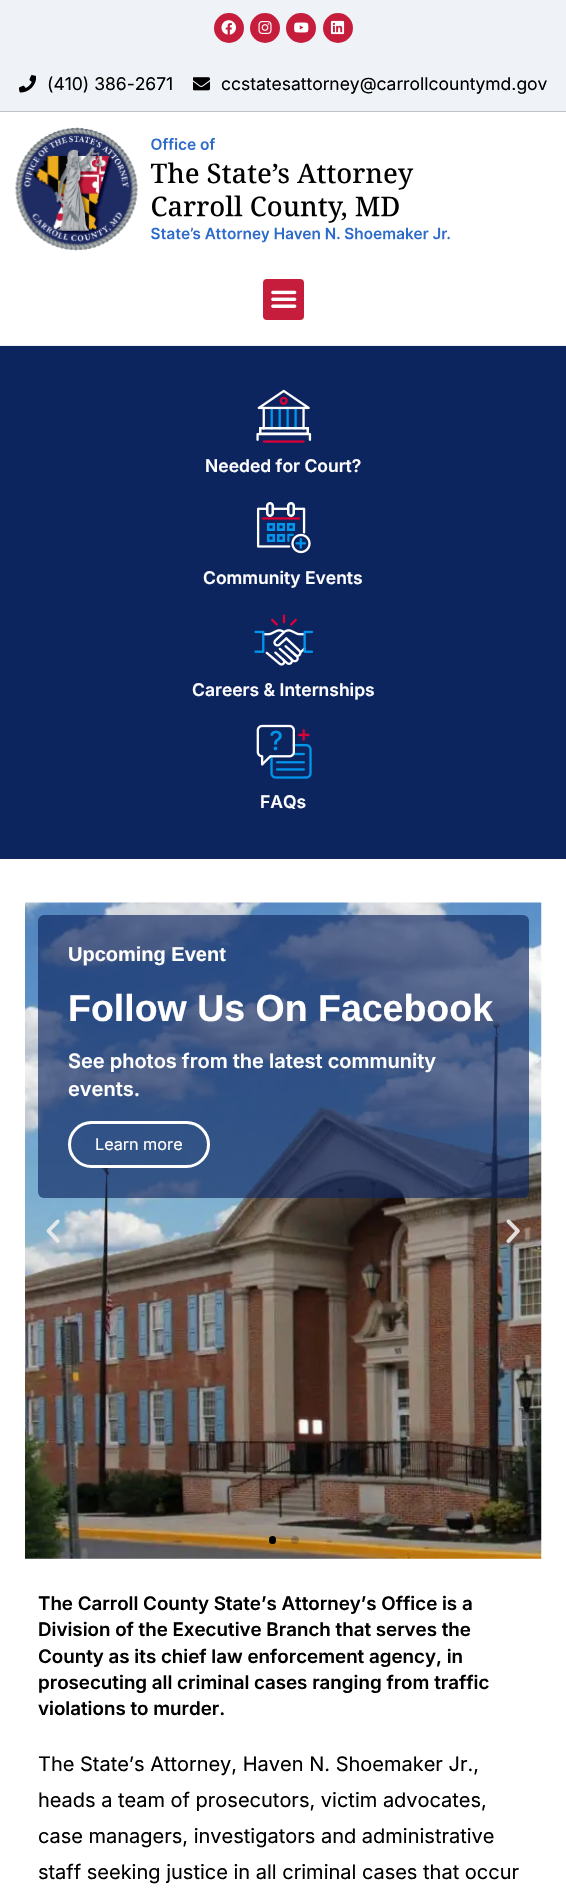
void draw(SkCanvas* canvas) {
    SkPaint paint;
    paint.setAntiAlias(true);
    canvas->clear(0xFFFFFFFF);
    paint.setColor(0xFFF1F1F1);
    canvas->drawRect(SkRect::MakeXYWH(0, 345, 566, 1), paint);
    paint.setColor(0xFFEFF3F8);
    canvas->drawRect(SkRect::MakeXYWH(0, 0, 566, 111), paint);
    paint.setColor(0xFFC1C2C7);
    canvas->drawRect(SkRect::MakeXYWH(0, 111, 566, 1), paint);
    paint.setColor(0xFFC61D3D);
    canvas->drawCircle(229, 28, 15, paint);
    canvas->drawImageRect(SkImages::DeferredFromEncodedData(SkData::MakeFromFileName("img1.png")), SkRect::MakeXYWH(221, 20, 15, 15), SkSamplingOptions());
    canvas->drawCircle(265, 28, 15, paint);
    canvas->drawImageRect(SkImages::DeferredFromEncodedData(SkData::MakeFromFileName("img2.png")), SkRect::MakeXYWH(258, 21, 14, 13), SkSamplingOptions());
    canvas->drawCircle(301, 28, 15, paint);
    canvas->drawImageRect(SkImages::DeferredFromEncodedData(SkData::MakeFromFileName("img3.png")), SkRect::MakeXYWH(294, 22, 15, 11), SkSamplingOptions());
    canvas->drawCircle(338, 28, 15, paint);
    canvas->drawImageRect(SkImages::DeferredFromEncodedData(SkData::MakeFromFileName("img4.png")), SkRect::MakeXYWH(330, 20, 15, 15), SkSamplingOptions());
    canvas->drawImageRect(SkImages::DeferredFromEncodedData(SkData::MakeFromFileName("img5.png")), SkRect::MakeXYWH(19, 75, 17, 18), SkSamplingOptions());
    SkFont font1(fontMgr->matchFamilyStyle("Inter", SkFontStyle::Normal()), 17.5f);
    font1.setSubpixel(true);
    paint.setColor(0xFF000000);
    canvas->drawString("(410) 386-2671", 47, 90, font1, paint);
    canvas->drawImageRect(SkImages::DeferredFromEncodedData(SkData::MakeFromFileName("img6.png")), SkRect::MakeXYWH(193, 77, 17, 14), SkSamplingOptions());
    canvas->drawString("ccstatesattorney@carrollcountymd.gov", 221, 90, font1, paint);
    canvas->drawImageRect(SkImages::DeferredFromEncodedData(SkData::MakeFromFileName("img7.png")), SkRect::MakeXYWH(15, 127, 435, 124), SkSamplingOptions());
    paint.setColor(0xFFC61D3D);
    canvas->drawRoundRect(SkRect::MakeXYWH(263, 279, 41, 41), 4, 4, paint);
    canvas->drawImageRect(SkImages::DeferredFromEncodedData(SkData::MakeFromFileName("img8.png")), SkRect::MakeXYWH(271, 290, 26, 18), SkSamplingOptions());
    paint.setColor(0xFF0C255F);
    canvas->drawRect(SkRect::MakeXYWH(0, 346, 566, 513), paint);
    canvas->drawImageRect(SkImages::DeferredFromEncodedData(SkData::MakeFromFileName("img9.png")), SkRect::MakeXYWH(256, 389, 56, 54), SkSamplingOptions());
    SkFont font2(fontMgr->matchFamilyStyle("Inter", SkFontStyle(600, SkFontStyle::kNormal_Width, SkFontStyle::kUpright_Slant)), 17.5f);
    font2.setSubpixel(true);
    paint.setColor(0xFFFFFFFF);
    canvas->drawString("Needed for Court?", 205, 472, font2, paint);
    canvas->drawImageRect(SkImages::DeferredFromEncodedData(SkData::MakeFromFileName("img10.png")), SkRect::MakeXYWH(256, 502, 55, 52), SkSamplingOptions());
    canvas->drawString("Community Events", 203, 584, font2, paint);
    canvas->drawImageRect(SkImages::DeferredFromEncodedData(SkData::MakeFromFileName("img11.png")), SkRect::MakeXYWH(254, 614, 59, 52), SkSamplingOptions());
    canvas->drawString("Careers & Internships", 192, 696, font2, paint);
    canvas->drawImageRect(SkImages::DeferredFromEncodedData(SkData::MakeFromFileName("img12.png")), SkRect::MakeXYWH(256, 724, 56, 55), SkSamplingOptions());
    canvas->drawString("FAQs", 260, 808, font2, paint);
    canvas->drawImageRect(SkImages::DeferredFromEncodedData(SkData::MakeFromFileName("img13.png")), SkRect::MakeXYWH(25, 902, 517, 657), SkSamplingOptions());
    paint.setColor(0xA60C255F);
    canvas->drawRoundRect(SkRect::MakeXYWH(38, 915, 491, 283), 6, 6, paint);
    SkFont font3(fontMgr->matchFamilyStyle("Liberation Sans", SkFontStyle::Bold()), 20);
    font3.setSubpixel(true);
    paint.setColor(0xFFFFFFFF);
    canvas->drawString("Upcoming Event", 68, 961, font3, paint);
    SkFont font4(fontMgr->matchFamilyStyle("Liberation Sans", SkFontStyle::Bold()), 37.5f);
    font4.setSubpixel(true);
    canvas->drawString("Follow Us On Facebook", 68, 1021, font4, paint);
    SkFont font5(fontMgr->matchFamilyStyle("Inter", SkFontStyle(600, SkFontStyle::kNormal_Width, SkFontStyle::kUpright_Slant)), 20);
    font5.setSubpixel(true);
    canvas->drawString("See photos from the latest community", 68, 1068, font5, paint);
    canvas->drawString("events.", 68, 1096, font5, paint);
    paint.setStyle(SkPaint::kStroke_Style);
    paint.setStrokeWidth(3);
    canvas->drawRoundRect(SkRect::MakeXYWH(69.5f, 1122.5f, 139, 44), 22, 22, paint);
    SkFont font6(fontMgr->matchFamilyStyle("Inter", SkFontStyle::Normal()), 16.25f);
    font6.setSubpixel(true);
    paint.setStyle(SkPaint::kFill_Style);
    canvas->drawString("Learn more", 95, 1150, font6, paint);
    canvas->drawImageRect(SkImages::DeferredFromEncodedData(SkData::MakeFromFileName("img14.png")), SkRect::MakeXYWH(46, 1219, 14, 24), SkSamplingOptions());
    canvas->drawImageRect(SkImages::DeferredFromEncodedData(SkData::MakeFromFileName("img15.png")), SkRect::MakeXYWH(506, 1219, 14, 24), SkSamplingOptions());
    paint.setColor(0xFF000000);
    canvas->drawRoundRect(SkRect::MakeXYWH(269, 1536, 7, 8), 3.5f, 3.5f, paint);
    paint.setColor(0x33000000);
    canvas->drawCircle(295, 1540, 4, paint);
    SkFont font7(fontMgr->matchFamilyStyle("Inter", SkFontStyle(600, SkFontStyle::kNormal_Width, SkFontStyle::kUpright_Slant)), 18.75f);
    font7.setSubpixel(true);
    paint.setColor(0xFF000000);
    canvas->drawString("The Carroll County State’s Attorney’s Office is a", 38, 1610, font7, paint);
    canvas->drawString("Division of the Executive Branch that serves the", 38, 1636, font7, paint);
    canvas->drawString("County as its chief law enforcement agency, in", 38, 1663, font7, paint);
    canvas->drawString("prosecuting all criminal cases ranging from traffic", 38, 1689, font7, paint);
    canvas->drawString("violations to murder.", 38, 1715, font7, paint);
    SkFont font8(fontMgr->matchFamilyStyle("Inter", SkFontStyle::Normal()), 20);
    font8.setSubpixel(true);
    canvas->drawString("The State’s Attorney, Haven N. Shoemaker Jr.,", 38, 1771, font8, paint);
    canvas->drawString("heads a team of prosecutors, victim advocates,", 38, 1807, font8, paint);
    canvas->drawString("case managers, investigators and administrative", 38, 1843, font8, paint);
    canvas->drawString("staff seeking justice in all criminal cases that occur", 38, 1879, font8, paint);
}
